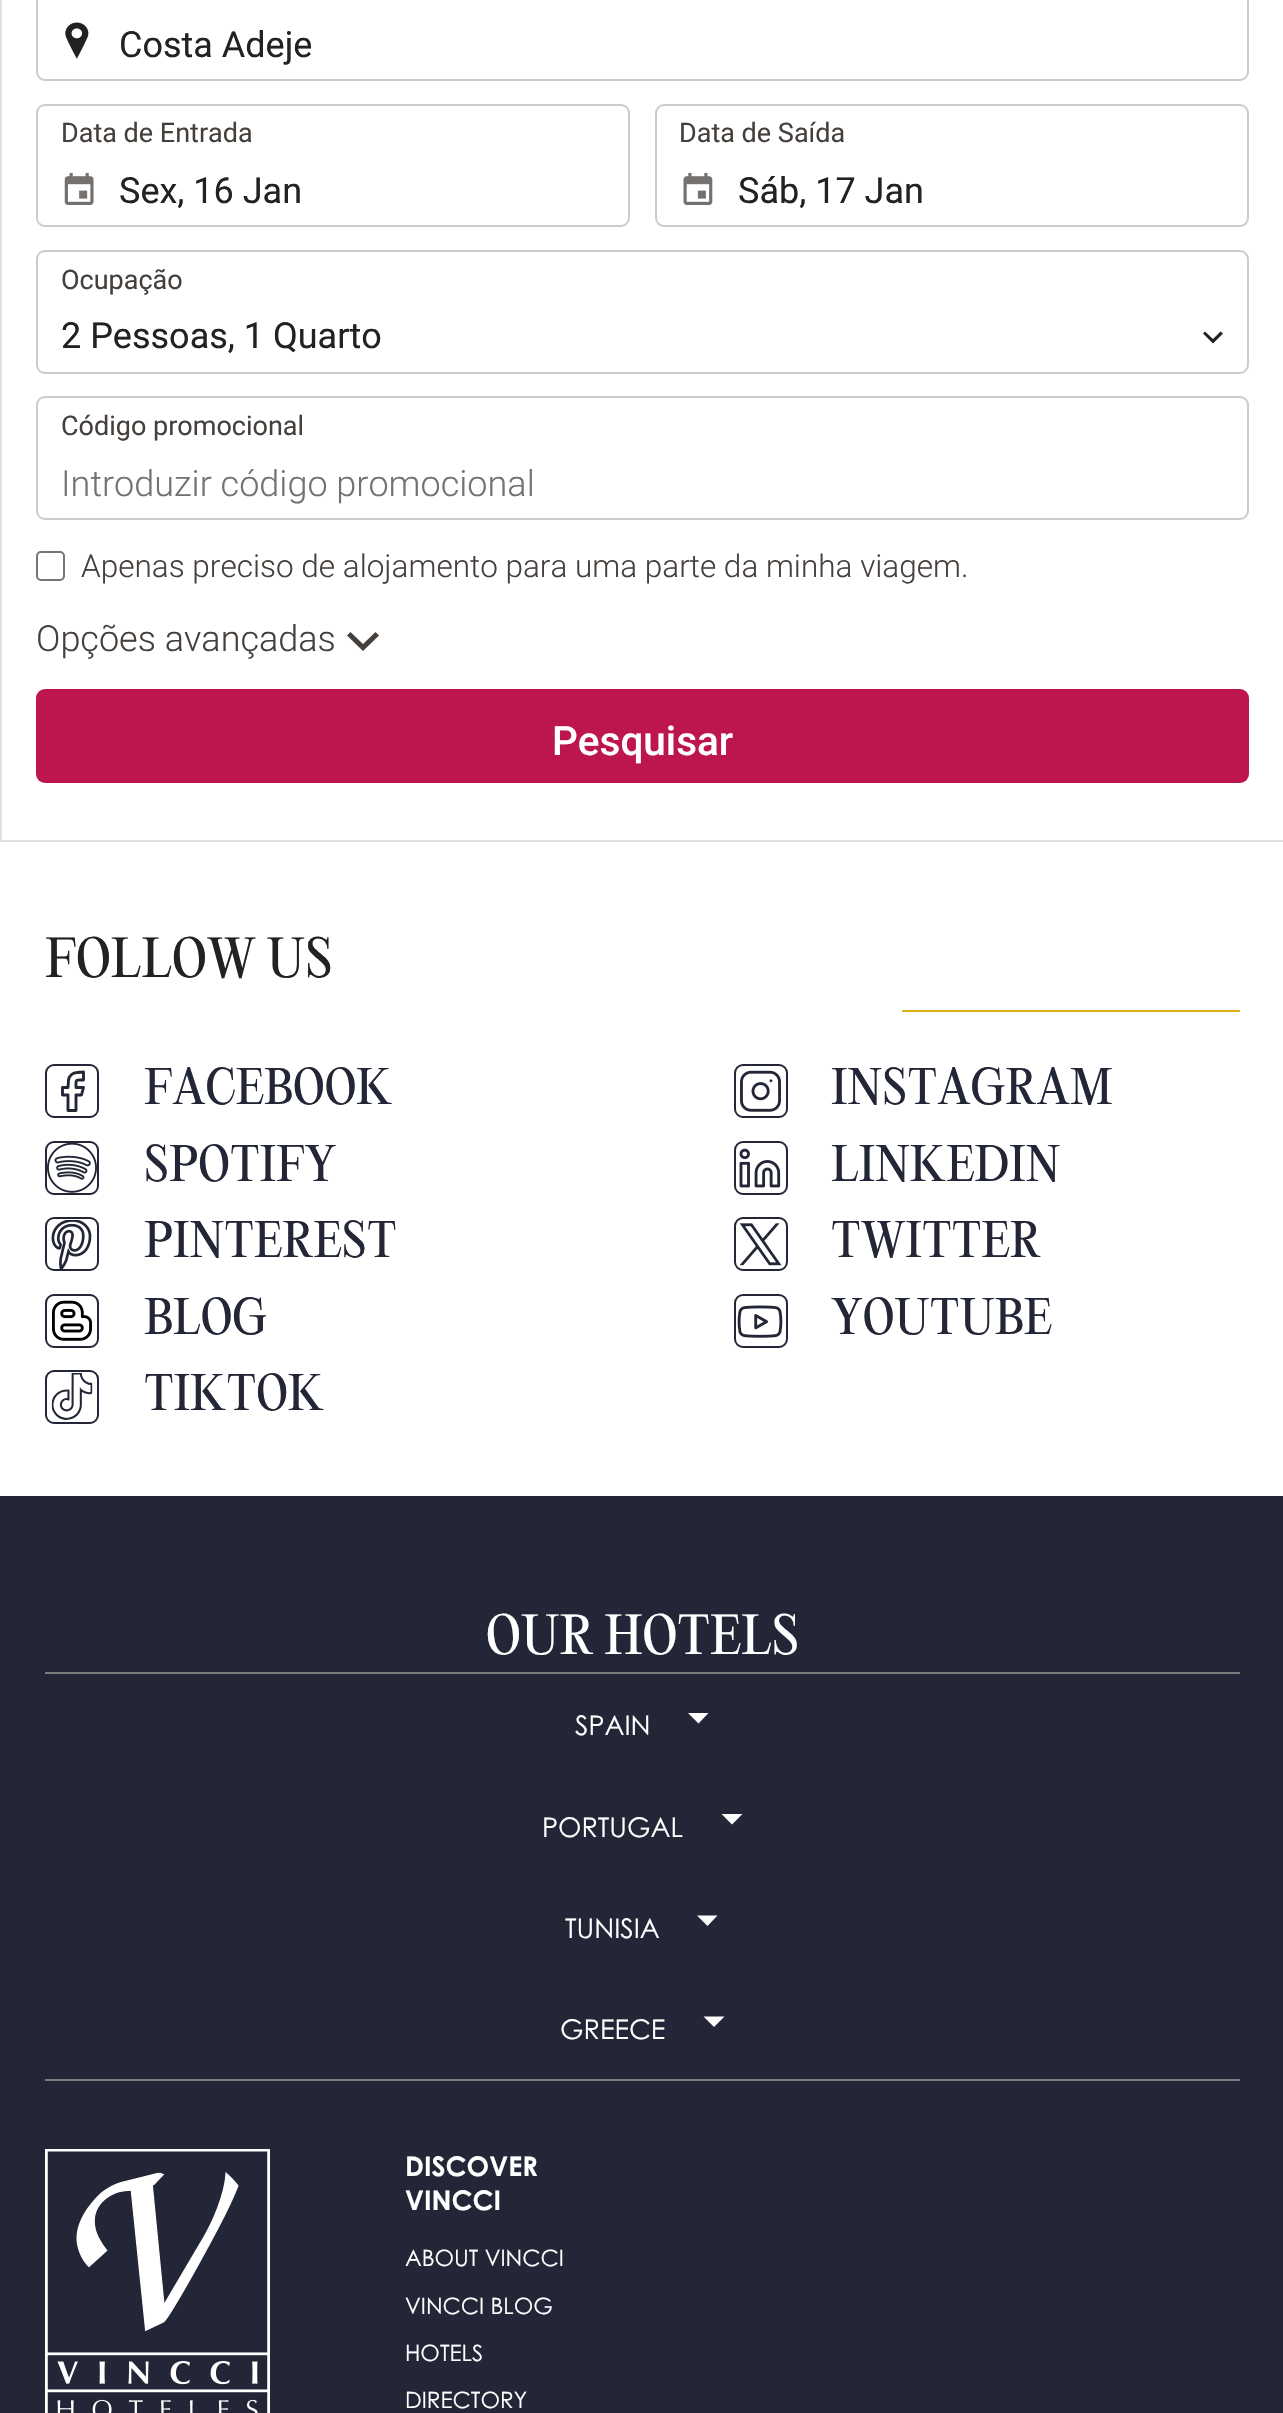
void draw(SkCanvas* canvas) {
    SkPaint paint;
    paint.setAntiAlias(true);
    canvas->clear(0xFFFFFFFF);
    paint.setStyle(SkPaint::kStroke_Style);
    paint.setStrokeWidth(2);
    paint.setColor(0xFFDFDFDF);
    canvas->drawRect(SkRect::MakeXYWH(1, -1, 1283, 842), paint);
    canvas->drawImageRect(SkImages::DeferredFromEncodedData(SkData::MakeFromFileName("img1.png")), SkRect::MakeXYWH(65, 22, 24, 37), SkSamplingOptions());
    paint.setColor(0xFFD0CBC9);
    canvas->drawRoundRect(SkRect::MakeXYWH(37, -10, 1211, 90), 8, 8, paint);
    SkFont font1(fontMgr->matchFamilyStyle("Roboto", SkFontStyle::Normal()), 36);
    font1.setSubpixel(true);
    paint.setStyle(SkPaint::kFill_Style);
    paint.setColor(0xFF222222);
    canvas->drawString("Costa Adeje", 119, 57, font1, paint);
    canvas->drawImageRect(SkImages::DeferredFromEncodedData(SkData::MakeFromFileName("img2.png")), SkRect::MakeXYWH(64, 173, 30, 32), SkSamplingOptions());
    paint.setStyle(SkPaint::kStroke_Style);
    paint.setColor(0xFFD0CBC9);
    canvas->drawRoundRect(SkRect::MakeXYWH(37, 105, 592, 121), 8, 8, paint);
    SkFont font2(fontMgr->matchFamilyStyle("Roboto", SkFontStyle::Normal()), 27);
    font2.setSubpixel(true);
    paint.setStyle(SkPaint::kFill_Style);
    paint.setColor(0xFF46403C);
    canvas->drawString("Data de Entrada", 61, 142, font2, paint);
    paint.setColor(0xFF222222);
    canvas->drawString("Sex, 16 Jan", 119, 203, font1, paint);
    canvas->drawImageRect(SkImages::DeferredFromEncodedData(SkData::MakeFromFileName("img3.png")), SkRect::MakeXYWH(683, 173, 30, 32), SkSamplingOptions());
    paint.setStyle(SkPaint::kStroke_Style);
    paint.setColor(0xFFD0CBC9);
    canvas->drawRoundRect(SkRect::MakeXYWH(656, 105, 592, 121), 8, 8, paint);
    paint.setStyle(SkPaint::kFill_Style);
    paint.setColor(0xFF46403C);
    canvas->drawString("Data de Saída", 679, 142, font2, paint);
    paint.setColor(0xFF222222);
    canvas->drawString("Sáb, 17 Jan", 738, 203, font1, paint);
    paint.setStyle(SkPaint::kStroke_Style);
    paint.setColor(0xFFD0CBC9);
    canvas->drawRoundRect(SkRect::MakeXYWH(37, 251, 1211, 122), 8, 8, paint);
    paint.setStyle(SkPaint::kFill_Style);
    paint.setColor(0xFF46403C);
    canvas->drawString("Ocupação", 61, 289, font2, paint);
    paint.setColor(0xFF222222);
    canvas->drawString("2 Pessoas, 1 Quarto", 61, 348, font1, paint);
    canvas->drawPath(SkPathBuilder(SkPathFillType::kEvenOdd).moveTo(1205, 331.5f).lineTo(1213, 339).lineTo(1220.5f, 331.5f).lineTo(1223, 333.5f).lineTo(1213, 343.5f).lineTo(1203, 333.5f).close().detach(), paint);
    paint.setStyle(SkPaint::kStroke_Style);
    paint.setColor(0xFFD0CBC9);
    canvas->drawRoundRect(SkRect::MakeXYWH(37, 397, 1211, 122), 8, 8, paint);
    paint.setStyle(SkPaint::kFill_Style);
    paint.setColor(0xFF46403C);
    canvas->drawString("Código promocional", 61, 435, font2, paint);
    SkFont font3(fontMgr->matchFamilyStyle("Roboto", SkFontStyle(300, SkFontStyle::kNormal_Width, SkFontStyle::kUpright_Slant)), 36);
    font3.setSubpixel(true);
    paint.setColor(0xFF74716E);
    canvas->drawString("Introduzir código promocional", 61, 496, font3, paint);
    paint.setStyle(SkPaint::kStroke_Style);
    paint.setColor(0xFF767676);
    canvas->drawRoundRect(SkRect::MakeXYWH(37, 552, 27, 28), 4, 4, paint);
    SkFont font4(fontMgr->matchFamilyStyle("Roboto", SkFontStyle(300, SkFontStyle::kNormal_Width, SkFontStyle::kUpright_Slant)), 31.5f);
    font4.setSubpixel(true);
    paint.setStyle(SkPaint::kFill_Style);
    paint.setColor(0xFF46403C);
    canvas->drawString("Apenas preciso de alojamento para uma parte da minha viagem.", 81, 577, font4, paint);
    canvas->drawString("Opções avançadas", 36, 651, font3, paint);
    canvas->drawPath(SkPathBuilder(SkPathFillType::kEvenOdd).moveTo(350.5f, 632).lineTo(363, 644).lineTo(375.5f, 632).lineTo(379, 635.5f).lineTo(363, 651).lineTo(347, 635.5f).close().detach(), paint);
    paint.setColor(0xFFBD1550);
    canvas->drawRoundRect(SkRect::MakeXYWH(36, 689, 1213, 94), 9, 9, paint);
    SkFont font5(fontMgr->matchFamilyStyle("Roboto", SkFontStyle(500, SkFontStyle::kNormal_Width, SkFontStyle::kUpright_Slant)), 40.5f);
    font5.setSubpixel(true);
    paint.setColor(0xFFFFFFFF);
    canvas->drawString("Pesquisar", 552, 755, font5, paint);
    SkFont font6(fontMgr->matchFamilyStyle("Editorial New", SkFontStyle::Normal()), 49.5f);
    font6.setSubpixel(true);
    paint.setColor(0xFF222222);
    canvas->drawString("FOLLOW US", 45, 977, font6, paint);
    paint.setColor(0xFFD8B011);
    canvas->drawRect(SkRect::MakeXYWH(902, 1010, 338, 2), paint);
    paint.setStyle(SkPaint::kStroke_Style);
    paint.setColor(0xFF232636);
    canvas->drawRoundRect(SkRect::MakeXYWH(46, 1065, 52, 52), 8, 8, paint);
    paint.setStrokeWidth(2.9f);
    paint.setStrokeCap(SkPaint::kRound_Cap);
    paint.setStrokeJoin(SkPaint::kRound_Join);
    paint.setColor(0xFF232637);
    canvas->drawPath(SkPathBuilder().moveTo(83.5f, 1072).lineTo(77, 1072.5f).cubicTo(72.5f, 1072.5f, 69, 1076, 68.5f, 1080).lineTo(68, 1087.5f).lineTo(62.5f, 1087.5f).lineTo(62.5f, 1095).lineTo(68, 1095).lineTo(68, 1110.5f).lineTo(76, 1110.5f).lineTo(76, 1095).lineTo(81.5f, 1095).lineTo(83.5f, 1087.5f).lineTo(76, 1087.5f).cubicTo(76, 1079, 75, 1080, 83.5f, 1080).close().detach(), paint);
    SkFont font7(fontMgr->matchFamilyStyle("Editorial New", SkFontStyle::Normal()), 45);
    font7.setSubpixel(true);
    paint.setStyle(SkPaint::kFill_Style);
    paint.setColor(0xFF232636);
    canvas->drawString("FACEBOOK", 144, 1104, font7, paint);
    paint.setStyle(SkPaint::kStroke_Style);
    paint.setStrokeWidth(2);
    paint.setStrokeCap(SkPaint::kButt_Cap);
    paint.setStrokeJoin(SkPaint::kMiter_Join);
    canvas->drawRoundRect(SkRect::MakeXYWH(735, 1065, 52, 52), 8, 8, paint);
    canvas->drawImageRect(SkImages::DeferredFromEncodedData(SkData::MakeFromFileName("img4.png")), SkRect::MakeXYWH(740, 1070, 41, 42), SkSamplingOptions());
    paint.setStyle(SkPaint::kFill_Style);
    canvas->drawString("INSTAGRAM", 831, 1104, font7, paint);
    paint.setStyle(SkPaint::kStroke_Style);
    canvas->drawRoundRect(SkRect::MakeXYWH(46, 1142, 52, 52), 8, 8, paint);
    canvas->drawImageRect(SkImages::DeferredFromEncodedData(SkData::MakeFromFileName("img5.png")), SkRect::MakeXYWH(47, 1143, 50, 50), SkSamplingOptions());
    paint.setStyle(SkPaint::kFill_Style);
    canvas->drawString("SPOTIFY", 144, 1181, font7, paint);
    paint.setStyle(SkPaint::kStroke_Style);
    canvas->drawRoundRect(SkRect::MakeXYWH(735, 1142, 52, 52), 8, 8, paint);
    canvas->drawImageRect(SkImages::DeferredFromEncodedData(SkData::MakeFromFileName("img6.png")), SkRect::MakeXYWH(739, 1148, 42, 40), SkSamplingOptions());
    paint.setStyle(SkPaint::kFill_Style);
    canvas->drawString("LINKEDIN", 831, 1181, font7, paint);
    paint.setStyle(SkPaint::kStroke_Style);
    canvas->drawRoundRect(SkRect::MakeXYWH(46, 1218, 52, 52), 8, 8, paint);
    canvas->drawImageRect(SkImages::DeferredFromEncodedData(SkData::MakeFromFileName("img7.png")), SkRect::MakeXYWH(51, 1220, 41, 49), SkSamplingOptions());
    paint.setStyle(SkPaint::kFill_Style);
    canvas->drawString("PINTEREST", 144, 1257, font7, paint);
    paint.setStyle(SkPaint::kStroke_Style);
    canvas->drawRoundRect(SkRect::MakeXYWH(735, 1218, 52, 52), 8, 8, paint);
    canvas->drawImageRect(SkImages::DeferredFromEncodedData(SkData::MakeFromFileName("img8.png")), SkRect::MakeXYWH(739, 1223, 43, 43), SkSamplingOptions());
    paint.setStyle(SkPaint::kFill_Style);
    canvas->drawString("TWITTER", 831, 1257, font7, paint);
    paint.setStyle(SkPaint::kStroke_Style);
    canvas->drawRoundRect(SkRect::MakeXYWH(46, 1295, 52, 52), 8, 8, paint);
    canvas->drawImageRect(SkImages::DeferredFromEncodedData(SkData::MakeFromFileName("img9.png")), SkRect::MakeXYWH(52, 1300, 40, 41), SkSamplingOptions());
    paint.setStyle(SkPaint::kFill_Style);
    canvas->drawString("BLOG", 144, 1334, font7, paint);
    paint.setStyle(SkPaint::kStroke_Style);
    canvas->drawRoundRect(SkRect::MakeXYWH(735, 1295, 52, 52), 8, 8, paint);
    canvas->drawImageRect(SkImages::DeferredFromEncodedData(SkData::MakeFromFileName("img10.png")), SkRect::MakeXYWH(737, 1305, 46, 33), SkSamplingOptions());
    paint.setStyle(SkPaint::kFill_Style);
    canvas->drawString("YOUTUBE", 831, 1334, font7, paint);
    paint.setStyle(SkPaint::kStroke_Style);
    canvas->drawRoundRect(SkRect::MakeXYWH(46, 1371, 52, 52), 8, 8, paint);
    canvas->drawImageRect(SkImages::DeferredFromEncodedData(SkData::MakeFromFileName("img11.png")), SkRect::MakeXYWH(51, 1373, 42, 47), SkSamplingOptions());
    paint.setStyle(SkPaint::kFill_Style);
    canvas->drawString("TIKTOK", 144, 1410, font7, paint);
    canvas->drawRect(SkRect::MakeXYWH(0, 1496, 1283, 917), paint);
    paint.setColor(0xFF7C7C7C);
    canvas->drawRect(SkRect::MakeXYWH(45, 1672, 1195, 2), paint);
    paint.setColor(0xFFFFFFFF);
    canvas->drawString("OUR HOTELS", 486, 1654, font6, paint);
    SkFont font8(fontMgr->matchFamilyStyle("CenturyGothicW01", SkFontStyle::Normal()), 27);
    font8.setSubpixel(true);
    canvas->drawString("SPAIN", 575, 1735, font8, paint);
    canvas->drawPath(SkPathBuilder().moveTo(708.5f, 1713).lineTo(698.5f, 1723.5f).lineTo(688, 1713).close().detach(), paint);
    canvas->drawString("PORTUGAL", 542, 1837, font8, paint);
    canvas->drawPath(SkPathBuilder().moveTo(742.5f, 1814).lineTo(732, 1824.5f).lineTo(721.5f, 1814).close().detach(), paint);
    canvas->drawString("TUNISIA", 565, 1938, font8, paint);
    canvas->drawPath(SkPathBuilder().moveTo(717.5f, 1915.5f).lineTo(707.5f, 1926).lineTo(697, 1915.5f).close().detach(), paint);
    canvas->drawString("GREECE", 560, 2039, font8, paint);
    canvas->drawPath(SkPathBuilder().moveTo(724.5f, 2016.5f).lineTo(714, 2027).lineTo(703.5f, 2016.5f).close().detach(), paint);
    paint.setColor(0xFF7C7C7C);
    canvas->drawRect(SkRect::MakeXYWH(45, 2079, 1195, 2), paint);
    canvas->drawImageRect(SkImages::DeferredFromEncodedData(SkData::MakeFromFileName("img12.png")), SkRect::MakeXYWH(45, 2149, 225, 264), SkSamplingOptions());
    SkFont font9(fontMgr->matchFamilyStyle("Century Gothic", SkFontStyle::Bold()), 27);
    font9.setSubpixel(true);
    paint.setColor(0xFFFFFFFF);
    canvas->drawString("DISCOVER", 405, 2176, font9, paint);
    canvas->drawString("VINCCI", 405, 2210, font9, paint);
    SkFont font10(fontMgr->matchFamilyStyle("CenturyGothicW01", SkFontStyle::Normal()), 22.5f);
    font10.setSubpixel(true);
    canvas->drawString("ABOUT VINCCI", 405, 2266, font10, paint);
    canvas->drawString("VINCCI BLOG", 405, 2314, font10, paint);
    canvas->drawString("HOTELS", 405, 2361, font10, paint);
    canvas->drawString("DIRECTORY", 405, 2408, font10, paint);
}
